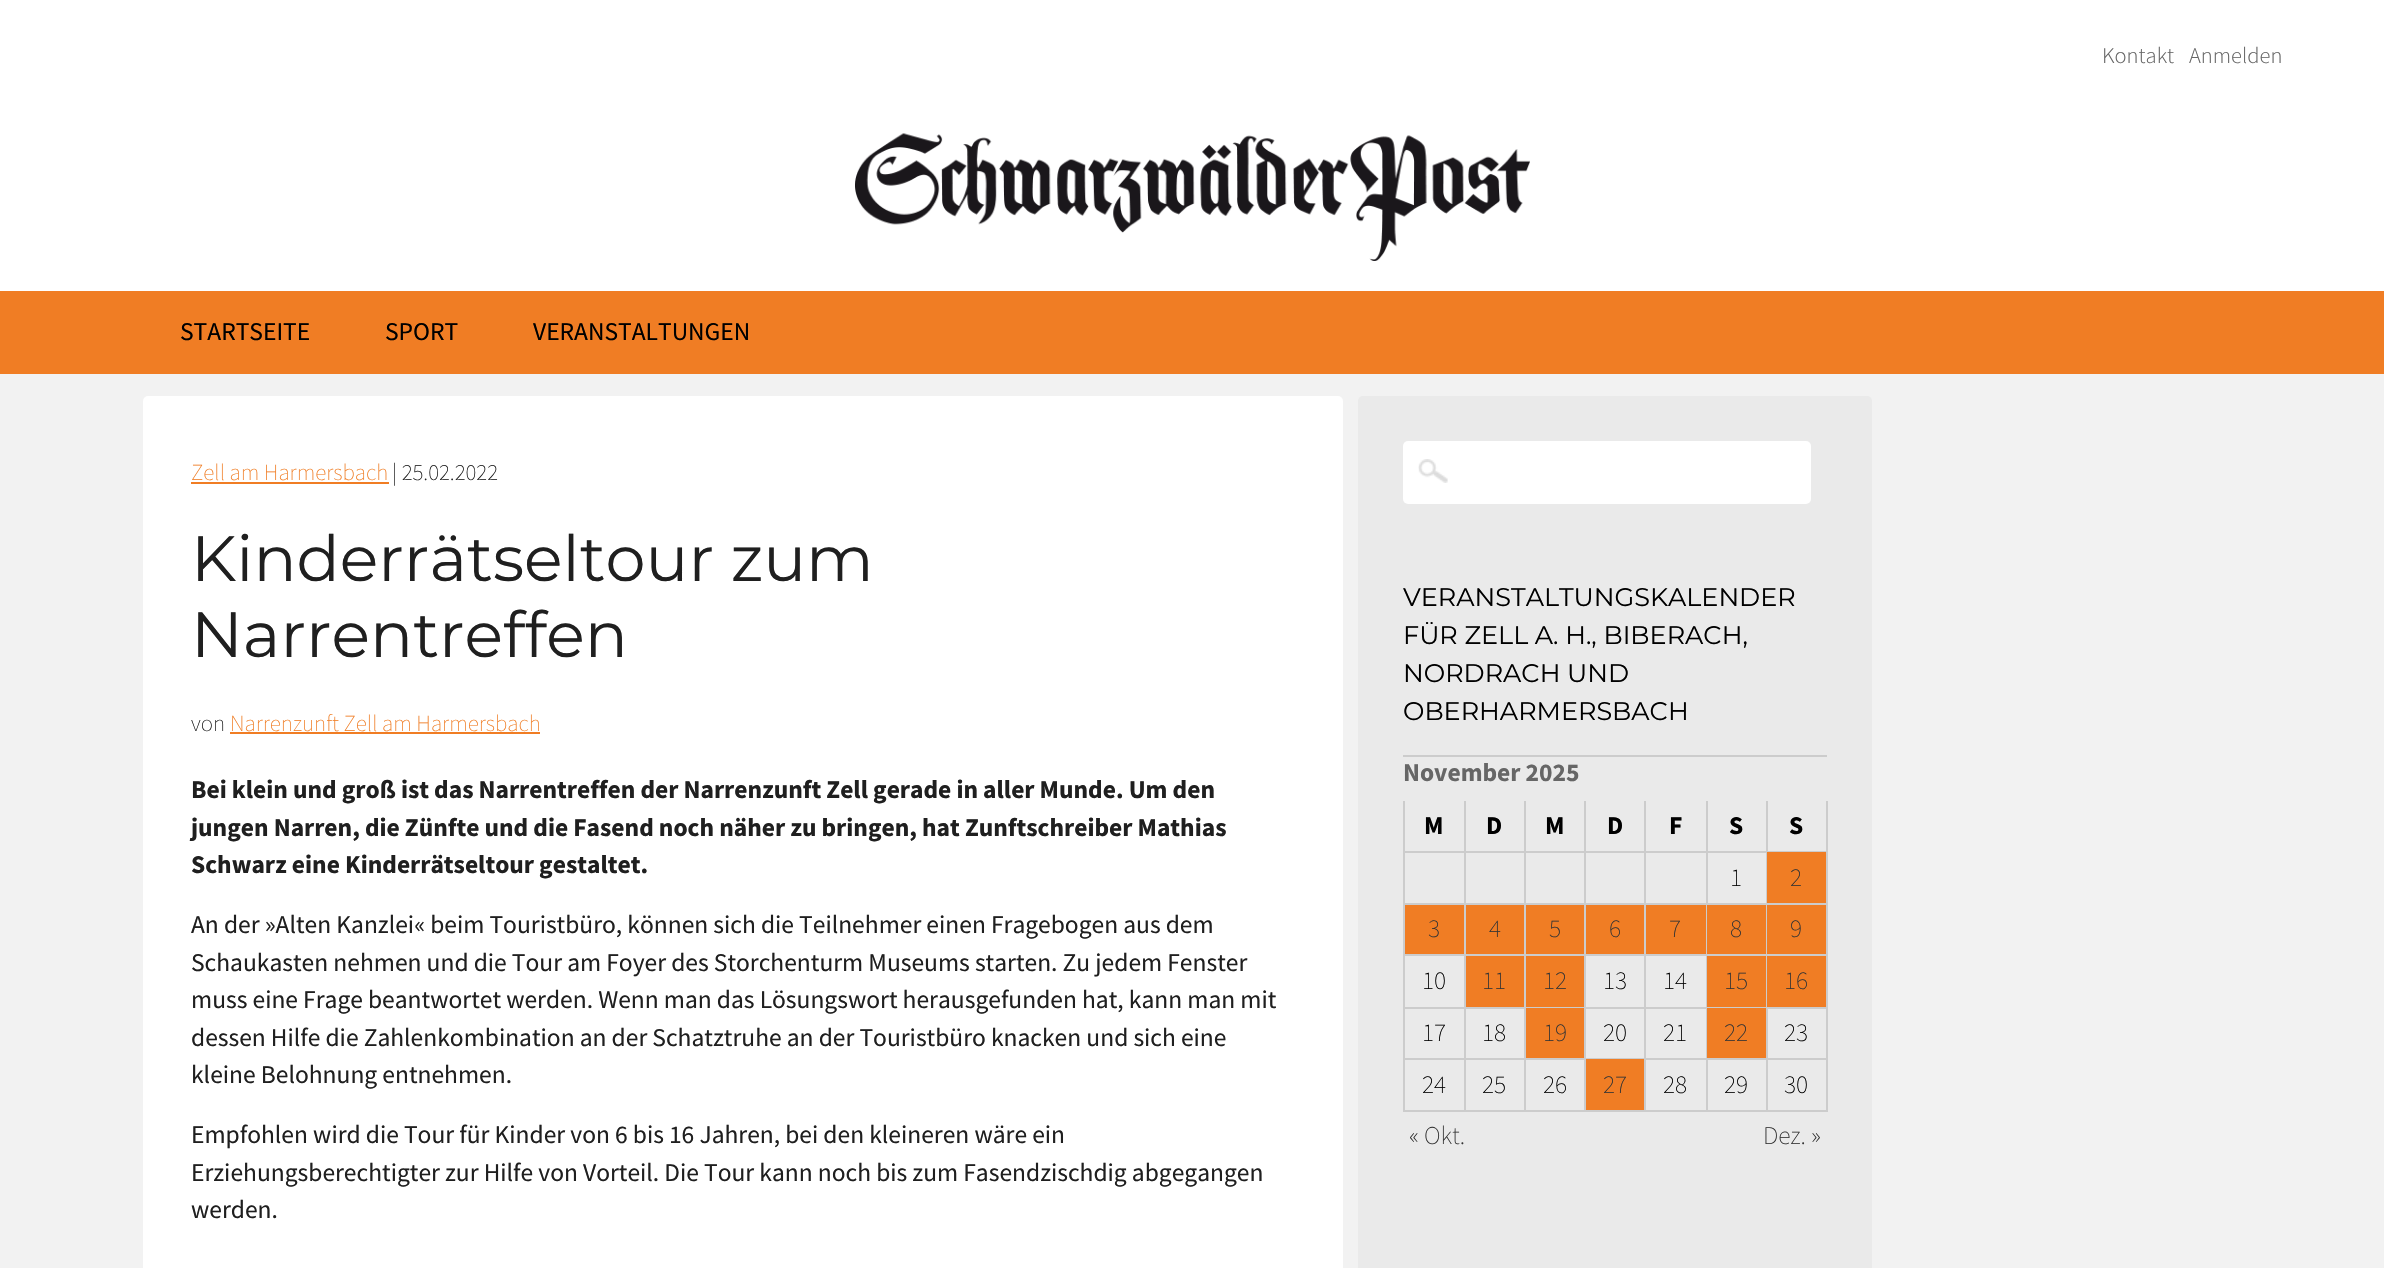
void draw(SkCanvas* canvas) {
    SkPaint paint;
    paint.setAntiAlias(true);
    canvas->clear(0xFFF2F2F2);
    paint.setColor(0xFFFFFFFF);
    canvas->drawRect(SkRect::MakeXYWH(0, 0, 2384, 291), paint);
    SkFont font1(fontMgr->matchFamilyStyle("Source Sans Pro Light", SkFontStyle(300, SkFontStyle::kNormal_Width, SkFontStyle::kUpright_Slant)), 22.5f);
    font1.setSubpixel(true);
    paint.setColor(0xFF666666);
    canvas->drawString("Kontakt", 2102, 63, font1, paint);
    canvas->drawString("Anmelden", 2189, 63, font1, paint);
    canvas->drawImageRect(SkImages::DeferredFromEncodedData(SkData::MakeFromFileName("img1.png")), SkRect::MakeXYWH(855, 133, 675, 128), SkSamplingOptions());
    paint.setColor(0xFFF07D24);
    canvas->drawRect(SkRect::MakeXYWH(0, 291, 2384, 83), paint);
    SkFont font2(fontMgr->matchFamilyStyle("Source Sans Pro", SkFontStyle::Normal()), 25.5f);
    font2.setSubpixel(true);
    paint.setColor(0xFF000000);
    canvas->drawString("STARTSEITE", 180, 340, font2, paint);
    canvas->drawString("SPORT", 385, 340, font2, paint);
    canvas->drawString("VERANSTALTUNGEN", 533, 340, font2, paint);
    paint.setColor(0xFFFFFFFF);
    canvas->drawRoundRect(SkRect::MakeXYWH(143, 396, 1200, 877), 5, 5, paint);
    SkFont font3(fontMgr->matchFamilyStyle("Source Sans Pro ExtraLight", SkFontStyle(200, SkFontStyle::kNormal_Width, SkFontStyle::kUpright_Slant)), 23);
    font3.setSubpixel(true);
    paint.setColor(0xFFF07D24);
    canvas->drawString("Zell am Harmersbach", 191, 480, font3, paint);
    canvas->drawRect(SkRect::MakeXYWH(191, 482, 198, 2), paint);
    paint.setColor(0xFF1F1F1F);
    canvas->drawString("| 25.02.2022", 392, 480, font3, paint);
    SkFont font4(fontMgr->matchFamilyStyle("Montserrat", SkFontStyle(100, SkFontStyle::kNormal_Width, SkFontStyle::kUpright_Slant)), 63.75f);
    font4.setSubpixel(true);
    canvas->drawString("Kinderrätseltour zum", 191, 581, font4, paint);
    canvas->drawString("Narrentreffen", 191, 657, font4, paint);
    canvas->drawString("von", 191, 731, font3, paint);
    paint.setColor(0xFFF07D24);
    canvas->drawString("Narrenzunft Zell am Harmersbach", 230, 731, font3, paint);
    canvas->drawRect(SkRect::MakeXYWH(230, 732, 310, 2), paint);
    SkFont font5(fontMgr->matchFamilyStyle("Source Sans Pro", SkFontStyle::Bold()), 25.5f);
    font5.setSubpixel(true);
    paint.setColor(0xFF1F1F1F);
    canvas->drawString("Bei klein und groß ist das Narrentreffen der Narrenzunft Zell gerade in aller Munde. Um den", 191, 798, font5, paint);
    canvas->drawString("jungen Narren, die Zünfte und die Fasend noch näher zu bringen, hat Zunftschreiber Mathias", 191, 836, font5, paint);
    canvas->drawString("Schwarz eine Kinderrätseltour gestaltet.", 191, 873, font5, paint);
    canvas->drawString("An der »Alten Kanzlei« beim Touristbüro, können sich die Teilnehmer einen Fragebogen aus dem", 191, 933, font2, paint);
    canvas->drawString("Schaukasten nehmen und die Tour am Foyer des Storchenturm Museums starten. Zu jedem Fenster", 191, 971, font2, paint);
    canvas->drawString("muss eine Frage beantwortet werden. Wenn man das Lösungswort herausgefunden hat, kann man mit", 191, 1008, font2, paint);
    canvas->drawString("dessen Hilfe die Zahlenkombination an der Schatztruhe an der Touristbüro knacken und sich eine", 191, 1046, font2, paint);
    canvas->drawString("kleine Belohnung entnehmen.", 191, 1083, font2, paint);
    canvas->drawString("Empfohlen wird die Tour für Kinder von 6 bis 16 Jahren, bei den kleineren wäre ein", 191, 1143, font2, paint);
    canvas->drawString("Erziehungsberechtigter zur Hilfe von Vorteil. Die Tour kann noch bis zum Fasendzischdig abgegangen", 191, 1181, font2, paint);
    canvas->drawString("werden.", 191, 1218, font2, paint);
    paint.setColor(0xFFEAEAEA);
    canvas->drawRoundRect(SkRect::MakeXYWH(1358, 396, 514, 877), 5, 5, paint);
    paint.setColor(0xFFFFFFFF);
    canvas->drawRoundRect(SkRect::MakeXYWH(1403, 441, 408, 63), 5, 5, paint);
    canvas->drawImageRect(SkImages::DeferredFromEncodedData(SkData::MakeFromFileName("img2.png")), SkRect::MakeXYWH(1418, 459, 30, 24), SkSamplingOptions());
    SkFont font6(fontMgr->matchFamilyStyle("Montserrat", SkFontStyle(100, SkFontStyle::kNormal_Width, SkFontStyle::kUpright_Slant)), 25.5f);
    font6.setSubpixel(true);
    paint.setColor(0xFF000000);
    canvas->drawString("VERANSTALTUNGSKALENDER", 1403, 606, font6, paint);
    canvas->drawString("FÜR ZELL A. H., BIBERACH,", 1403, 644, font6, paint);
    canvas->drawString("NORDRACH UND", 1403, 682, font6, paint);
    canvas->drawString("OBERHARMERSBACH", 1403, 720, font6, paint);
    paint.setColor(0xFFCCCCCC);
    canvas->drawRect(SkRect::MakeXYWH(1403, 755, 424, 2), paint);
    paint.setColor(0xFF666666);
    canvas->drawString("November 2025", 1403, 781, font5, paint);
    paint.setColor(0xFFCCCCCC);
    canvas->drawRect(SkRect::MakeXYWH(1464, 801, 2, 51), paint);
    canvas->drawRect(SkRect::MakeXYWH(1403, 851, 63, 2), paint);
    canvas->drawRect(SkRect::MakeXYWH(1403, 801, 2, 51), paint);
    paint.setColor(0xFF000000);
    canvas->drawString("M", 1424, 834, font5, paint);
    paint.setColor(0xFFCCCCCC);
    canvas->drawRect(SkRect::MakeXYWH(1524, 801, 2, 51), paint);
    canvas->drawRect(SkRect::MakeXYWH(1466, 851, 60, 2), paint);
    paint.setColor(0xFF000000);
    canvas->drawString("D", 1486, 834, font5, paint);
    paint.setColor(0xFFCCCCCC);
    canvas->drawRect(SkRect::MakeXYWH(1584, 801, 2, 51), paint);
    canvas->drawRect(SkRect::MakeXYWH(1526, 851, 60, 2), paint);
    paint.setColor(0xFF000000);
    canvas->drawString("M", 1545, 834, font5, paint);
    paint.setColor(0xFFCCCCCC);
    canvas->drawRect(SkRect::MakeXYWH(1644, 801, 2, 51), paint);
    canvas->drawRect(SkRect::MakeXYWH(1586, 851, 60, 2), paint);
    paint.setColor(0xFF000000);
    canvas->drawString("D", 1607, 834, font5, paint);
    paint.setColor(0xFFCCCCCC);
    canvas->drawRect(SkRect::MakeXYWH(1706, 801, 2, 51), paint);
    canvas->drawRect(SkRect::MakeXYWH(1646, 851, 61, 2), paint);
    paint.setColor(0xFF000000);
    canvas->drawString("F", 1669, 834, font5, paint);
    paint.setColor(0xFFCCCCCC);
    canvas->drawRect(SkRect::MakeXYWH(1766, 801, 2, 51), paint);
    canvas->drawRect(SkRect::MakeXYWH(1707, 851, 60, 2), paint);
    paint.setColor(0xFF000000);
    canvas->drawString("S", 1729, 834, font5, paint);
    paint.setColor(0xFFCCCCCC);
    canvas->drawRect(SkRect::MakeXYWH(1826, 801, 2, 207), paint);
    canvas->drawRect(SkRect::MakeXYWH(1767, 851, 60, 1), paint);
    paint.setColor(0xFF000000);
    canvas->drawString("S", 1789, 834, font5, paint);
    paint.setColor(0xFFCCCCCC);
    canvas->drawRect(SkRect::MakeXYWH(1464, 852, 2, 156), paint);
    canvas->drawRect(SkRect::MakeXYWH(1403, 903, 63, 2), paint);
    canvas->drawRect(SkRect::MakeXYWH(1403, 852, 2, 53), paint);
    canvas->drawRect(SkRect::MakeXYWH(1524, 852, 2, 156), paint);
    canvas->drawRect(SkRect::MakeXYWH(1466, 903, 60, 2), paint);
    canvas->drawRect(SkRect::MakeXYWH(1584, 852, 2, 207), paint);
    canvas->drawRect(SkRect::MakeXYWH(1526, 903, 60, 2), paint);
    canvas->drawRect(SkRect::MakeXYWH(1644, 852, 2, 156), paint);
    canvas->drawRect(SkRect::MakeXYWH(1586, 903, 60, 2), paint);
    canvas->drawRect(SkRect::MakeXYWH(1706, 852, 2, 53), paint);
    canvas->drawRect(SkRect::MakeXYWH(1646, 903, 61, 2), paint);
    canvas->drawRect(SkRect::MakeXYWH(1766, 852, 1, 156), paint);
    canvas->drawRect(SkRect::MakeXYWH(1707, 903, 120, 2), paint);
    SkFont font7(fontMgr->matchFamilyStyle("Source Sans Pro ExtraLight", SkFontStyle(200, SkFontStyle::kNormal_Width, SkFontStyle::kUpright_Slant)), 25.5f);
    font7.setSubpixel(true);
    paint.setColor(0xFF000000);
    canvas->drawString("1", 1730, 886, font7, paint);
    paint.setColor(0xFFF07D24);
    canvas->drawRect(SkRect::MakeXYWH(1767, 852, 59, 51), paint);
    paint.setColor(0xFF333333);
    canvas->drawString("2", 1790, 886, font7, paint);
    paint.setColor(0xFFF07D24);
    canvas->drawRect(SkRect::MakeXYWH(1405, 905, 59, 49), paint);
    paint.setColor(0xFFCCCCCC);
    canvas->drawRect(SkRect::MakeXYWH(1403, 954, 243, 2), paint);
    canvas->drawRect(SkRect::MakeXYWH(1403, 905, 2, 51), paint);
    paint.setColor(0xFF333333);
    canvas->drawString("3", 1428, 937, font7, paint);
    paint.setColor(0xFFF07D24);
    canvas->drawRect(SkRect::MakeXYWH(1466, 905, 58, 49), paint);
    paint.setColor(0xFF333333);
    canvas->drawString("4", 1489, 937, font7, paint);
    paint.setColor(0xFFF07D24);
    canvas->drawRect(SkRect::MakeXYWH(1526, 905, 58, 49), paint);
    paint.setColor(0xFF333333);
    canvas->drawString("5", 1549, 937, font7, paint);
    paint.setColor(0xFFF07D24);
    canvas->drawRect(SkRect::MakeXYWH(1586, 905, 58, 49), paint);
    paint.setColor(0xFF333333);
    canvas->drawString("6", 1609, 937, font7, paint);
    paint.setColor(0xFFF07D24);
    canvas->drawRect(SkRect::MakeXYWH(1646, 905, 60, 49), paint);
    paint.setColor(0xFFCCCCCC);
    canvas->drawRect(SkRect::MakeXYWH(1706, 905, 1, 103), paint);
    canvas->drawRect(SkRect::MakeXYWH(1646, 954, 181, 2), paint);
    paint.setColor(0xFF333333);
    canvas->drawString("7", 1669, 937, font7, paint);
    paint.setColor(0xFFF07D24);
    canvas->drawRect(SkRect::MakeXYWH(1707, 905, 59, 49), paint);
    paint.setColor(0xFF333333);
    canvas->drawString("8", 1730, 937, font7, paint);
    paint.setColor(0xFFF07D24);
    canvas->drawRect(SkRect::MakeXYWH(1767, 905, 59, 49), paint);
    paint.setColor(0xFF333333);
    canvas->drawString("9", 1790, 937, font7, paint);
    paint.setColor(0xFFCCCCCC);
    canvas->drawRect(SkRect::MakeXYWH(1403, 1007, 123, 2), paint);
    canvas->drawRect(SkRect::MakeXYWH(1403, 956, 2, 52), paint);
    paint.setColor(0xFF000000);
    canvas->drawString("10", 1422, 989, font7, paint);
    paint.setColor(0xFFF07D24);
    canvas->drawRect(SkRect::MakeXYWH(1466, 956, 58, 51), paint);
    paint.setColor(0xFF333333);
    canvas->drawString("11", 1482, 989, font7, paint);
    paint.setColor(0xFFF07D24);
    canvas->drawRect(SkRect::MakeXYWH(1526, 956, 58, 51), paint);
    paint.setColor(0xFFCCCCCC);
    canvas->drawRect(SkRect::MakeXYWH(1526, 1007, 60, 1), paint);
    paint.setColor(0xFF333333);
    canvas->drawString("12", 1543, 989, font7, paint);
    paint.setColor(0xFFCCCCCC);
    canvas->drawRect(SkRect::MakeXYWH(1586, 1007, 121, 2), paint);
    paint.setColor(0xFF000000);
    canvas->drawString("13", 1603, 989, font7, paint);
    canvas->drawString("14", 1663, 989, font7, paint);
    paint.setColor(0xFFF07D24);
    canvas->drawRect(SkRect::MakeXYWH(1707, 956, 59, 51), paint);
    paint.setColor(0xFFCCCCCC);
    canvas->drawRect(SkRect::MakeXYWH(1707, 1007, 60, 1), paint);
    paint.setColor(0xFF333333);
    canvas->drawString("15", 1724, 989, font7, paint);
    paint.setColor(0xFFF07D24);
    canvas->drawRect(SkRect::MakeXYWH(1767, 956, 59, 51), paint);
    paint.setColor(0xFFCCCCCC);
    canvas->drawRect(SkRect::MakeXYWH(1767, 1007, 60, 2), paint);
    paint.setColor(0xFF333333);
    canvas->drawString("16", 1784, 989, font7, paint);
    paint.setColor(0xFFCCCCCC);
    canvas->drawRect(SkRect::MakeXYWH(1464, 1008, 2, 51), paint);
    canvas->drawRect(SkRect::MakeXYWH(1403, 1058, 63, 2), paint);
    canvas->drawRect(SkRect::MakeXYWH(1403, 1008, 2, 51), paint);
    paint.setColor(0xFF000000);
    canvas->drawString("17", 1422, 1041, font7, paint);
    paint.setColor(0xFFCCCCCC);
    canvas->drawRect(SkRect::MakeXYWH(1524, 1008, 2, 51), paint);
    canvas->drawRect(SkRect::MakeXYWH(1466, 1058, 120, 2), paint);
    paint.setColor(0xFF000000);
    canvas->drawString("18", 1482, 1041, font7, paint);
    paint.setColor(0xFFF07D24);
    canvas->drawRect(SkRect::MakeXYWH(1526, 1008, 58, 50), paint);
    paint.setColor(0xFF333333);
    canvas->drawString("19", 1543, 1041, font7, paint);
    paint.setColor(0xFFCCCCCC);
    canvas->drawRect(SkRect::MakeXYWH(1644, 1008, 2, 104), paint);
    canvas->drawRect(SkRect::MakeXYWH(1586, 1058, 60, 1), paint);
    paint.setColor(0xFF000000);
    canvas->drawString("20", 1603, 1041, font7, paint);
    paint.setColor(0xFFCCCCCC);
    canvas->drawRect(SkRect::MakeXYWH(1706, 1008, 1, 51), paint);
    canvas->drawRect(SkRect::MakeXYWH(1646, 1058, 61, 2), paint);
    paint.setColor(0xFF000000);
    canvas->drawString("21", 1663, 1041, font7, paint);
    paint.setColor(0xFFF07D24);
    canvas->drawRect(SkRect::MakeXYWH(1707, 1008, 59, 50), paint);
    paint.setColor(0xFFCCCCCC);
    canvas->drawRect(SkRect::MakeXYWH(1766, 1008, 2, 51), paint);
    canvas->drawRect(SkRect::MakeXYWH(1707, 1058, 60, 2), paint);
    paint.setColor(0xFF333333);
    canvas->drawString("22", 1724, 1041, font7, paint);
    paint.setColor(0xFFCCCCCC);
    canvas->drawRect(SkRect::MakeXYWH(1826, 1008, 2, 51), paint);
    canvas->drawRect(SkRect::MakeXYWH(1767, 1058, 60, 2), paint);
    paint.setColor(0xFF000000);
    canvas->drawString("23", 1784, 1041, font7, paint);
    paint.setColor(0xFFCCCCCC);
    canvas->drawRect(SkRect::MakeXYWH(1464, 1059, 2, 53), paint);
    canvas->drawRect(SkRect::MakeXYWH(1403, 1110, 63, 2), paint);
    canvas->drawRect(SkRect::MakeXYWH(1403, 1059, 2, 53), paint);
    paint.setColor(0xFF000000);
    canvas->drawString("24", 1422, 1093, font7, paint);
    paint.setColor(0xFFCCCCCC);
    canvas->drawRect(SkRect::MakeXYWH(1524, 1059, 2, 53), paint);
    canvas->drawRect(SkRect::MakeXYWH(1466, 1110, 60, 2), paint);
    paint.setColor(0xFF000000);
    canvas->drawString("25", 1482, 1093, font7, paint);
    paint.setColor(0xFFCCCCCC);
    canvas->drawRect(SkRect::MakeXYWH(1584, 1059, 2, 53), paint);
    canvas->drawRect(SkRect::MakeXYWH(1526, 1110, 120, 2), paint);
    paint.setColor(0xFF000000);
    canvas->drawString("26", 1543, 1093, font7, paint);
    paint.setColor(0xFFF07D24);
    canvas->drawRect(SkRect::MakeXYWH(1586, 1059, 58, 51), paint);
    paint.setColor(0xFF333333);
    canvas->drawString("27", 1603, 1093, font7, paint);
    paint.setColor(0xFFCCCCCC);
    canvas->drawRect(SkRect::MakeXYWH(1706, 1059, 2, 53), paint);
    canvas->drawRect(SkRect::MakeXYWH(1646, 1110, 61, 2), paint);
    paint.setColor(0xFF000000);
    canvas->drawString("28", 1663, 1093, font7, paint);
    paint.setColor(0xFFCCCCCC);
    canvas->drawRect(SkRect::MakeXYWH(1766, 1059, 2, 53), paint);
    canvas->drawRect(SkRect::MakeXYWH(1707, 1110, 60, 2), paint);
    paint.setColor(0xFF000000);
    canvas->drawString("29", 1724, 1093, font7, paint);
    paint.setColor(0xFFCCCCCC);
    canvas->drawRect(SkRect::MakeXYWH(1826, 1059, 2, 53), paint);
    canvas->drawRect(SkRect::MakeXYWH(1767, 1110, 60, 2), paint);
    paint.setColor(0xFF000000);
    canvas->drawString("30", 1784, 1093, font7, paint);
    paint.setColor(0xFF333333);
    canvas->drawString("« Okt.", 1409, 1144, font7, paint);
    canvas->drawString("Dez. »", 1763, 1144, font7, paint);
}
